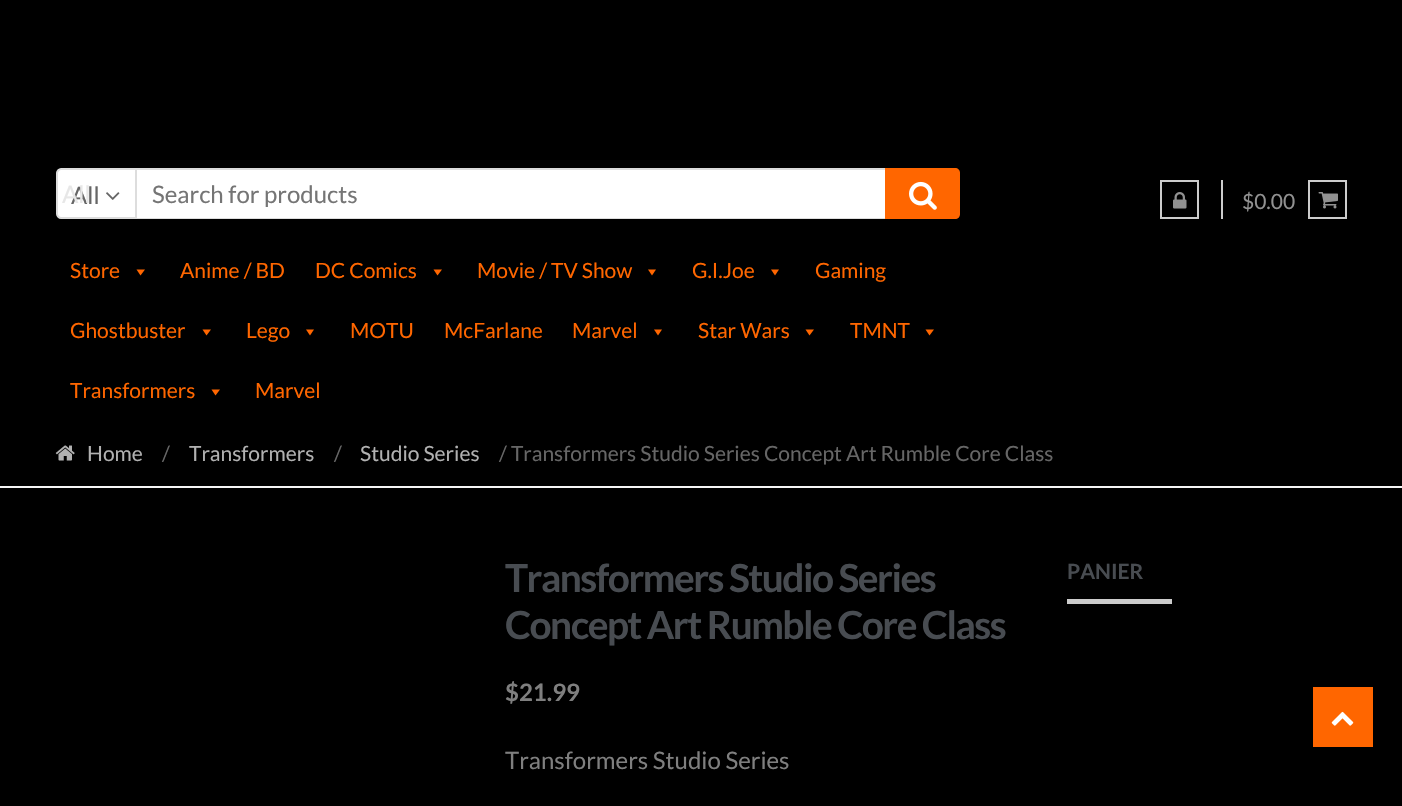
void draw(SkCanvas* canvas) {
    SkPaint paint;
    paint.setAntiAlias(true);
    auto spacedText = [&](const char* s, float x, float y, const SkFont& font, const SkPaint& ink, float letter, float word) {
        std::vector<SkGlyphID> glyphs(font.countText(s, strlen(s), SkTextEncoding::kUTF8));
        std::vector<float> xs(glyphs.size());
        font.textToGlyphs(s, strlen(s), SkTextEncoding::kUTF8, glyphs);
        font.getXPos(glyphs, xs, x);
        float extra = 0;
        for (size_t i = 0; i < glyphs.size(); i++) {
            xs[i] += extra;
            extra += letter + word * (glyphs[i] == font.unicharToGlyph(' '));
        }
        canvas->drawTextBlob(SkTextBlob::MakeFromPosHGlyphs(glyphs, xs, y, font), 0, 0, ink);
    };
    canvas->clear(0xFF000000);
    paint.setColor(0xFFFFFFFF);
    canvas->drawPath(SkPathBuilder().moveTo(61, 169).lineTo(136, 169).lineTo(136, 218).lineTo(61, 218).cubicTo(59, 218, 57, 216, 57, 214).lineTo(57, 173).cubicTo(57, 171, 59, 169, 61, 169).close().detach(), paint);
    paint.setStyle(SkPaint::kStroke_Style);
    paint.setStrokeWidth(2);
    paint.setColor(0xFFDDDDDD);
    canvas->drawPath(SkPathBuilder().moveTo(61, 169).lineTo(136, 169).lineTo(136, 218).lineTo(61, 218).cubicTo(59, 218, 57, 216, 57, 214).lineTo(57, 173).cubicTo(57, 171, 59, 169, 61, 169).close().detach(), paint);
    SkFont font1(fontMgr->matchFamilyStyle("Lato", SkFontStyle::Normal()), 24);
    font1.setSubpixel(true);
    paint.setStyle(SkPaint::kFill_Style);
    paint.setColor(0xFF666666);
    canvas->drawString("All", 71, 204, font1, paint);
    paint.setColor(0xFFE7E7E7);
    canvas->drawString("All", 62, 203, font1, paint);
    canvas->drawImageRect(SkImages::DeferredFromEncodedData(SkData::MakeFromFileName("img1.png")), SkRect::MakeXYWH(106, 192, 14, 8), SkSamplingOptions());
    paint.setColor(0xFFFFFFFF);
    canvas->drawRect(SkRect::MakeXYWH(137, 170, 748, 48), paint);
    paint.setColor(0xFFDDDDDD);
    canvas->drawRect(SkRect::MakeXYWH(137, 168, 748, 2), paint);
    canvas->drawRect(SkRect::MakeXYWH(137, 218, 748, 1), paint);
    canvas->save();
    canvas->clipRect(SkRect::MakeXYWH(152, 179, 718, 28));
    paint.setColor(0xFF757575);
    canvas->drawString("Search for products", 152, 203, font1, paint);
    canvas->restore();
    paint.setColor(0xFFFF6600);
    canvas->drawPath(SkPathBuilder().moveTo(885, 168).lineTo(955, 168).cubicTo(958, 168, 960, 170, 960, 173).lineTo(960, 214).cubicTo(960, 217, 958, 219, 955, 219).lineTo(885, 219).close().detach(), paint);
    canvas->drawImageRect(SkImages::DeferredFromEncodedData(SkData::MakeFromFileName("img2.png")), SkRect::MakeXYWH(909, 181, 28, 29), SkSamplingOptions());
    paint.setColor(0xFFCCCCCC);
    canvas->drawRect(SkRect::MakeXYWH(1221, 180, 2, 39), paint);
    paint.setStyle(SkPaint::kStroke_Style);
    canvas->drawRect(SkRect::MakeXYWH(1161, 181, 37, 37), paint);
    canvas->drawImageRect(SkImages::DeferredFromEncodedData(SkData::MakeFromFileName("img3.png")), SkRect::MakeXYWH(1173, 192, 14, 17), SkSamplingOptions());
    SkFont font2(fontMgr->matchFamilyStyle("Lato", SkFontStyle::Normal()), 21);
    font2.setSubpixel(true);
    paint.setStyle(SkPaint::kFill_Style);
    paint.setColor(0xFF919191);
    canvas->drawString("$0.00", 1242, 209, font2, paint);
    paint.setStyle(SkPaint::kStroke_Style);
    paint.setColor(0xFFCCCCCC);
    canvas->drawRect(SkRect::MakeXYWH(1309, 181, 37, 37), paint);
    canvas->drawImageRect(SkImages::DeferredFromEncodedData(SkData::MakeFromFileName("img4.png")), SkRect::MakeXYWH(1318, 192, 20, 17), SkSamplingOptions());
    paint.setStyle(SkPaint::kFill_Style);
    paint.setColor(0xFFFF6600);
    canvas->drawString("Store", 70, 278, font2, paint);
    canvas->drawPath(SkPathBuilder().moveTo(145, 269.5f).lineTo(140.5f, 275.5f).lineTo(136.5f, 269.5f).close().detach(), paint);
    canvas->drawString("Anime / BD", 180, 278, font2, paint);
    canvas->drawString("DC Comics", 315, 278, font2, paint);
    canvas->drawPath(SkPathBuilder().moveTo(442, 269.5f).lineTo(437.5f, 275.5f).lineTo(433.5f, 269.5f).close().detach(), paint);
    canvas->drawString("Movie / TV Show", 477, 278, font2, paint);
    canvas->drawPath(SkPathBuilder().moveTo(656, 269.5f).lineTo(652, 275.5f).lineTo(648, 269.5f).close().detach(), paint);
    canvas->drawString("G.I.Joe", 692, 278, font2, paint);
    canvas->drawPath(SkPathBuilder().moveTo(779, 269.5f).lineTo(775, 275.5f).lineTo(771, 269.5f).close().detach(), paint);
    canvas->drawString("Gaming", 815, 278, font2, paint);
    canvas->drawString("Ghostbuster", 70, 338, font2, paint);
    canvas->drawPath(SkPathBuilder().moveTo(211, 329.5f).lineTo(206.5f, 335.5f).lineTo(202.5f, 329.5f).close().detach(), paint);
    canvas->drawString("Lego", 246, 338, font2, paint);
    canvas->drawPath(SkPathBuilder().moveTo(314, 329.5f).lineTo(310, 335.5f).lineTo(306, 329.5f).close().detach(), paint);
    canvas->drawString("MOTU", 350, 338, font2, paint);
    canvas->drawString("McFarlane", 444, 338, font2, paint);
    canvas->drawString("Marvel", 572, 338, font2, paint);
    canvas->drawPath(SkPathBuilder().moveTo(662, 329.5f).lineTo(658, 335.5f).lineTo(654, 329.5f).close().detach(), paint);
    canvas->drawString("Star Wars", 698, 338, font2, paint);
    canvas->drawPath(SkPathBuilder().moveTo(814, 329.5f).lineTo(809.5f, 335.5f).lineTo(805.5f, 329.5f).close().detach(), paint);
    canvas->drawString("TMNT", 850, 338, font2, paint);
    canvas->drawPath(SkPathBuilder().moveTo(934, 329.5f).lineTo(929.5f, 335.5f).lineTo(925.5f, 329.5f).close().detach(), paint);
    canvas->drawString("Transformers", 70, 398, font2, paint);
    canvas->drawPath(SkPathBuilder().moveTo(220, 389.5f).lineTo(215.5f, 395.5f).lineTo(211.5f, 389.5f).close().detach(), paint);
    canvas->drawString("Marvel", 255, 398, font2, paint);
    paint.setColor(0xFFF5F5F5);
    canvas->drawRect(SkRect::MakeXYWH(0, 486, 1402, 2), paint);
    canvas->drawImageRect(SkImages::DeferredFromEncodedData(SkData::MakeFromFileName("img5.png")), SkRect::MakeXYWH(55, 445, 20, 16), SkSamplingOptions());
    paint.setColor(0xFFB1B1B1);
    canvas->drawString("Home", 87, 461, font2, paint);
    paint.setColor(0xFF666666);
    canvas->drawString("/", 162, 461, font2, paint);
    paint.setColor(0xFFB1B1B1);
    canvas->drawString("Transformers", 189, 461, font2, paint);
    paint.setColor(0xFF666666);
    canvas->drawString("/", 334, 461, font2, paint);
    paint.setColor(0xFFB1B1B1);
    canvas->drawString("Studio Series", 360, 461, font2, paint);
    paint.setColor(0xFF666666);
    canvas->drawString("/ Transformers Studio Series Concept Art Rumble Core Class", 499, 461, font2, paint);
    SkFont font3(fontMgr->matchFamilyStyle("Lato", SkFontStyle::Bold()), 38.8f);
    font3.setSubpixel(true);
    paint.setColor(0xFF484C51);
    spacedText("Transformers Studio Series", 505, 592, font3, paint, -1.5f, 0);
    spacedText("Concept Art Rumble Core Class", 505, 639, font3, paint, -1.5f, 0);
    SkFont font4(fontMgr->matchFamilyStyle("Lato", SkFontStyle::Bold()), 24);
    font4.setSubpixel(true);
    paint.setColor(0xFF7F7F7F);
    canvas->drawString("$21.99", 505, 701, font4, paint);
    canvas->drawString("Transformers Studio Series", 505, 769, font1, paint);
    SkFont font5(fontMgr->matchFamilyStyle("Lato", SkFontStyle::Bold()), 21);
    font5.setSubpixel(true);
    paint.setColor(0xFF484C51);
    canvas->drawString("PANIER", 1067, 579, font5, paint);
    paint.setColor(0xFFCCCCCC);
    canvas->drawRect(SkRect::MakeXYWH(1067, 599, 105, 5), paint);
    paint.setColor(0xFFFF6600);
    canvas->drawRect(SkRect::MakeXYWH(1313, 687, 60, 60), paint);
    canvas->drawImageRect(SkImages::DeferredFromEncodedData(SkData::MakeFromFileName("img6.png")), SkRect::MakeXYWH(1331, 711, 23, 15), SkSamplingOptions());
}
